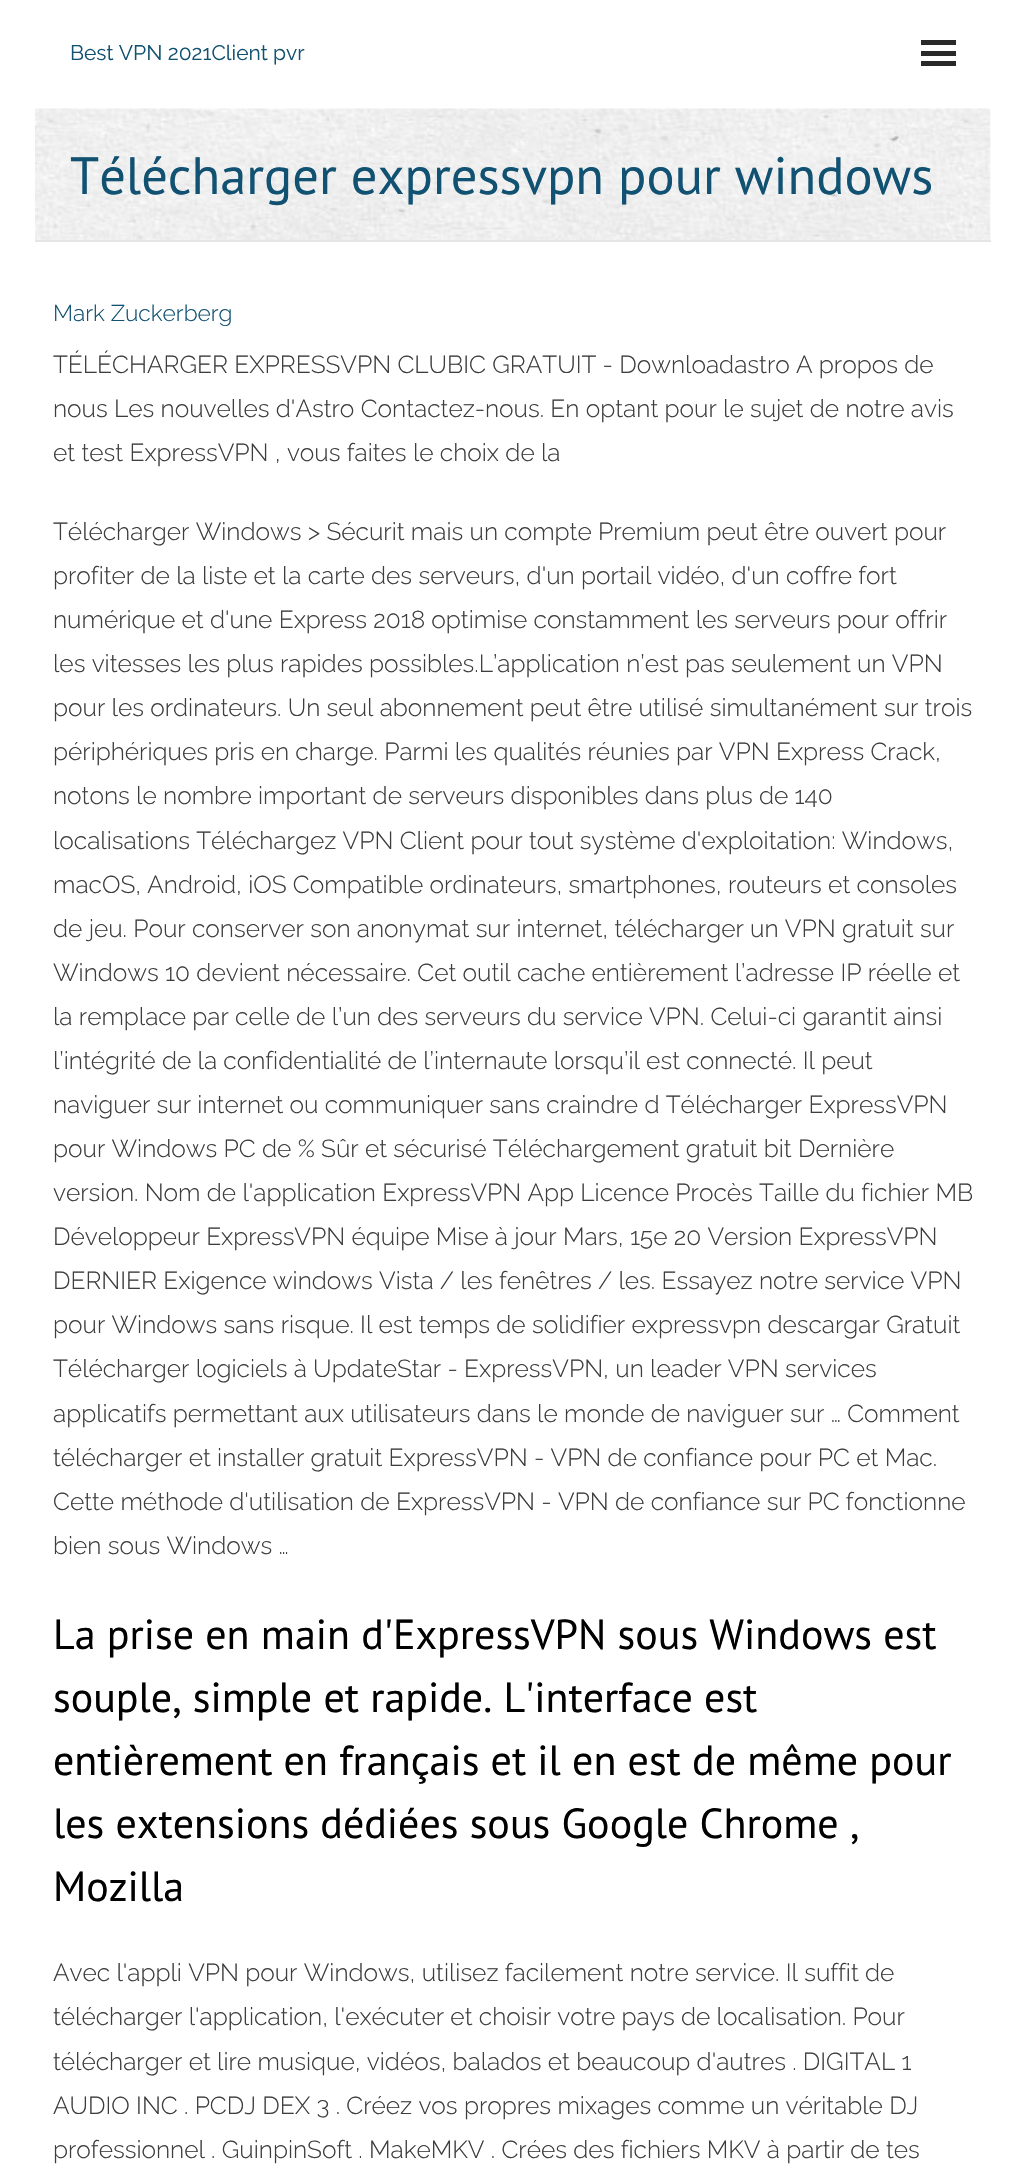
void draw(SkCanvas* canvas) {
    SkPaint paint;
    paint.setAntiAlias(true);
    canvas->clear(0xFFFFFFFF);
    SkFont font1(fontMgr->matchFamilyStyle("Raleway", SkFontStyle::Normal()), 21);
    font1.setSubpixel(true);
    paint.setColor(0xFF115172);
    canvas->drawString("Best VPN 2021Client pvr", 70, 60, font1, paint);
    paint.setColor(0xFF292929);
    canvas->drawRect(SkRect::MakeXYWH(921, 40, 35, 5), paint);
    canvas->drawRect(SkRect::MakeXYWH(921, 51, 35, 5), paint);
    canvas->drawRect(SkRect::MakeXYWH(921, 61, 35, 5), paint);
    canvas->drawImageRect(SkImages::DeferredFromEncodedData(SkData::MakeFromFileName("img1.png")), SkRect::MakeXYWH(35, 108, 956, 132), SkSamplingOptions());
    paint.setColor(0xFFE5E5E5);
    canvas->drawRect(SkRect::MakeXYWH(35, 240, 956, 2), paint);
    SkFont font2(fontMgr->matchFamilyStyle("PT Sans", SkFontStyle::Normal()), 52.5f);
    font2.setSubpixel(true);
    paint.setColor(0xFF115172);
    canvas->drawString("Télécharger expressvpn pour windows", 70, 194, font2, paint);
    SkFont font3(fontMgr->matchFamilyStyle("Raleway", SkFontStyle(300, SkFontStyle::kNormal_Width, SkFontStyle::kUpright_Slant)), 22.75f);
    font3.setSubpixel(true);
    canvas->drawString("Mark Zuckerberg", 53, 321, font3, paint);
    SkFont font4(fontMgr->matchFamilyStyle("Raleway", SkFontStyle(300, SkFontStyle::kNormal_Width, SkFontStyle::kUpright_Slant)), 24.5f);
    font4.setSubpixel(true);
    paint.setColor(0xFF3D3D3D);
    canvas->drawString("TÉLÉCHARGER EXPRESSVPN CLUBIC GRATUIT - Downloadastro A propos de", 53, 373, font4, paint);
    canvas->drawString("nous Les nouvelles d'Astro Contactez-nous. En optant pour le sujet de notre avis", 53, 417, font4, paint);
    canvas->drawString("et test ExpressVPN , vous faites le choix de la", 53, 461, font4, paint);
    canvas->drawString("Télécharger Windows > Sécurit mais un compte Premium peut être ouvert pour", 53, 540, font4, paint);
    canvas->drawString("profiter de la liste et la carte des serveurs, d'un portail vidéo, d'un coffre fort", 53, 584, font4, paint);
    canvas->drawString("numérique et d'une Express 2018 optimise constamment les serveurs pour offrir", 53, 628, font4, paint);
    canvas->drawString("les vitesses les plus rapides possibles.L’application n’est pas seulement un VPN", 53, 672, font4, paint);
    canvas->drawString("pour les ordinateurs. Un seul abonnement peut être utilisé simultanément sur trois", 53, 716, font4, paint);
    canvas->drawString("périphériques pris en charge. Parmi les qualités réunies par VPN Express Crack,", 53, 760, font4, paint);
    canvas->drawString("notons le nombre important de serveurs disponibles dans plus de 140", 53, 804, font4, paint);
    canvas->drawString("localisations Téléchargez VPN Client pour tout système d'exploitation: Windows,", 53, 849, font4, paint);
    canvas->drawString("macOS, Android, iOS Compatible ordinateurs, smartphones, routeurs et consoles", 53, 893, font4, paint);
    canvas->drawString("de jeu. Pour conserver son anonymat sur internet, télécharger un VPN gratuit sur", 53, 937, font4, paint);
    canvas->drawString("Windows 10 devient nécessaire. Cet outil cache entièrement l’adresse IP réelle et", 53, 981, font4, paint);
    canvas->drawString("la remplace par celle de l’un des serveurs du service VPN. Celui-ci garantit ainsi", 53, 1025, font4, paint);
    canvas->drawString("l’intégrité de la confidentialité de l’internaute lorsqu’il est connecté. Il peut", 53, 1069, font4, paint);
    canvas->drawString("naviguer sur internet ou communiquer sans craindre d Télécharger ExpressVPN", 53, 1113, font4, paint);
    canvas->drawString("pour Windows PC de % Sûr et sécurisé Téléchargement gratuit bit Dernière", 53, 1157, font4, paint);
    canvas->drawString("version. Nom de l'application ExpressVPN App Licence Procès Taille du fichier MB", 53, 1201, font4, paint);
    canvas->drawString("Développeur ExpressVPN équipe Mise à jour Mars, 15e 20 Version ExpressVPN", 53, 1245, font4, paint);
    canvas->drawString("DERNIER Exigence windows Vista / les fenêtres / les. Essayez notre service VPN", 53, 1289, font4, paint);
    canvas->drawString("pour Windows sans risque. Il est temps de solidifier expressvpn descargar Gratuit", 53, 1333, font4, paint);
    canvas->drawString("Télécharger logiciels à UpdateStar - ExpressVPN, un leader VPN services", 53, 1377, font4, paint);
    canvas->drawString("applicatifs permettant aux utilisateurs dans le monde de naviguer sur … Comment", 53, 1422, font4, paint);
    canvas->drawString("télécharger et installer gratuit ExpressVPN - VPN de confiance pour PC et Mac.", 53, 1466, font4, paint);
    canvas->drawString("Cette méthode d'utilisation de ExpressVPN - VPN de confiance sur PC fonctionne", 53, 1510, font4, paint);
    canvas->drawString("bien sous Windows …", 53, 1554, font4, paint);
    SkFont font5(fontMgr->matchFamilyStyle("PT Sans", SkFontStyle::Normal()), 42);
    font5.setSubpixel(true);
    paint.setColor(0xFF000000);
    canvas->drawString("La prise en main d'ExpressVPN sous Windows est", 53, 1649, font5, paint);
    canvas->drawString("souple, simple et rapide. L'interface est", 53, 1712, font5, paint);
    canvas->drawString("entièrement en français et il en est de même pour", 53, 1775, font5, paint);
    canvas->drawString("les extensions dédiées sous Google Chrome ,", 53, 1838, font5, paint);
    canvas->drawString("Mozilla", 53, 1901, font5, paint);
    paint.setColor(0xFF3D3D3D);
    canvas->drawString("Avec l'appli VPN pour Windows, utilisez facilement notre service. Il suffit de", 53, 1981, font4, paint);
    canvas->drawString("télécharger l'application, l'exécuter et choisir votre pays de localisation. Pour", 53, 2025, font4, paint);
    canvas->drawString("télécharger et lire musique, vidéos, balados et beaucoup d'autres . DIGITAL 1", 53, 2070, font4, paint);
    canvas->drawString("AUDIO INC . PCDJ DEX 3 . Créez vos propres mixages comme un véritable DJ", 53, 2114, font4, paint);
    canvas->drawString("professionnel . GuinpinSoft . MakeMKV . Crées des fichiers MKV à partir de tes", 53, 2158, font4, paint);
}
